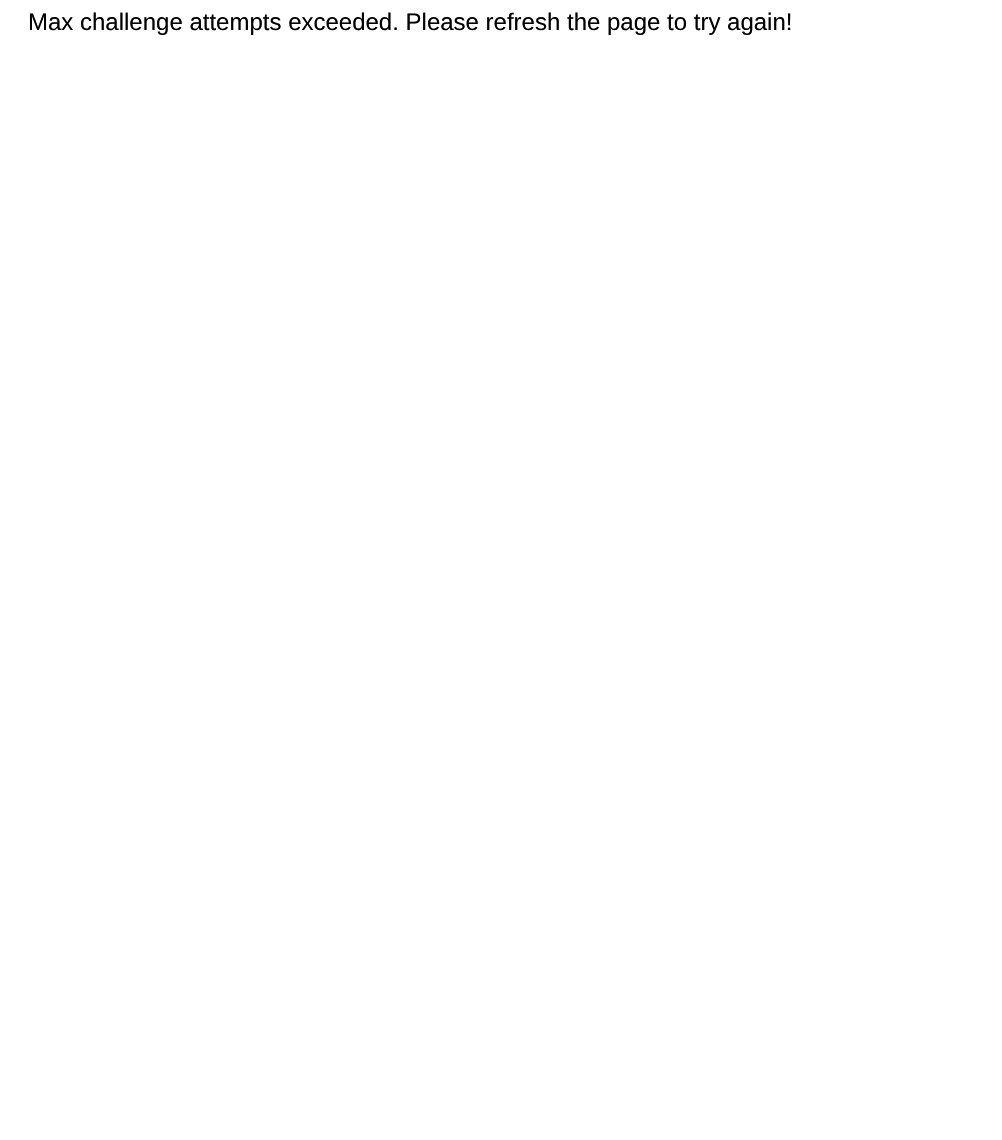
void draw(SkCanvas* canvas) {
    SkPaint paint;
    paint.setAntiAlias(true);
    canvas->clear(0xFFFFFFFF);
    SkFont font1(fontMgr->matchFamilyStyle("Liberation Sans", SkFontStyle::Normal()), 24);
    font1.setSubpixel(true);
    paint.setColor(0xFF000000);
    canvas->drawString("Max challenge attempts exceeded. Please refresh the page to try again!", 28, 30, font1, paint);
}
